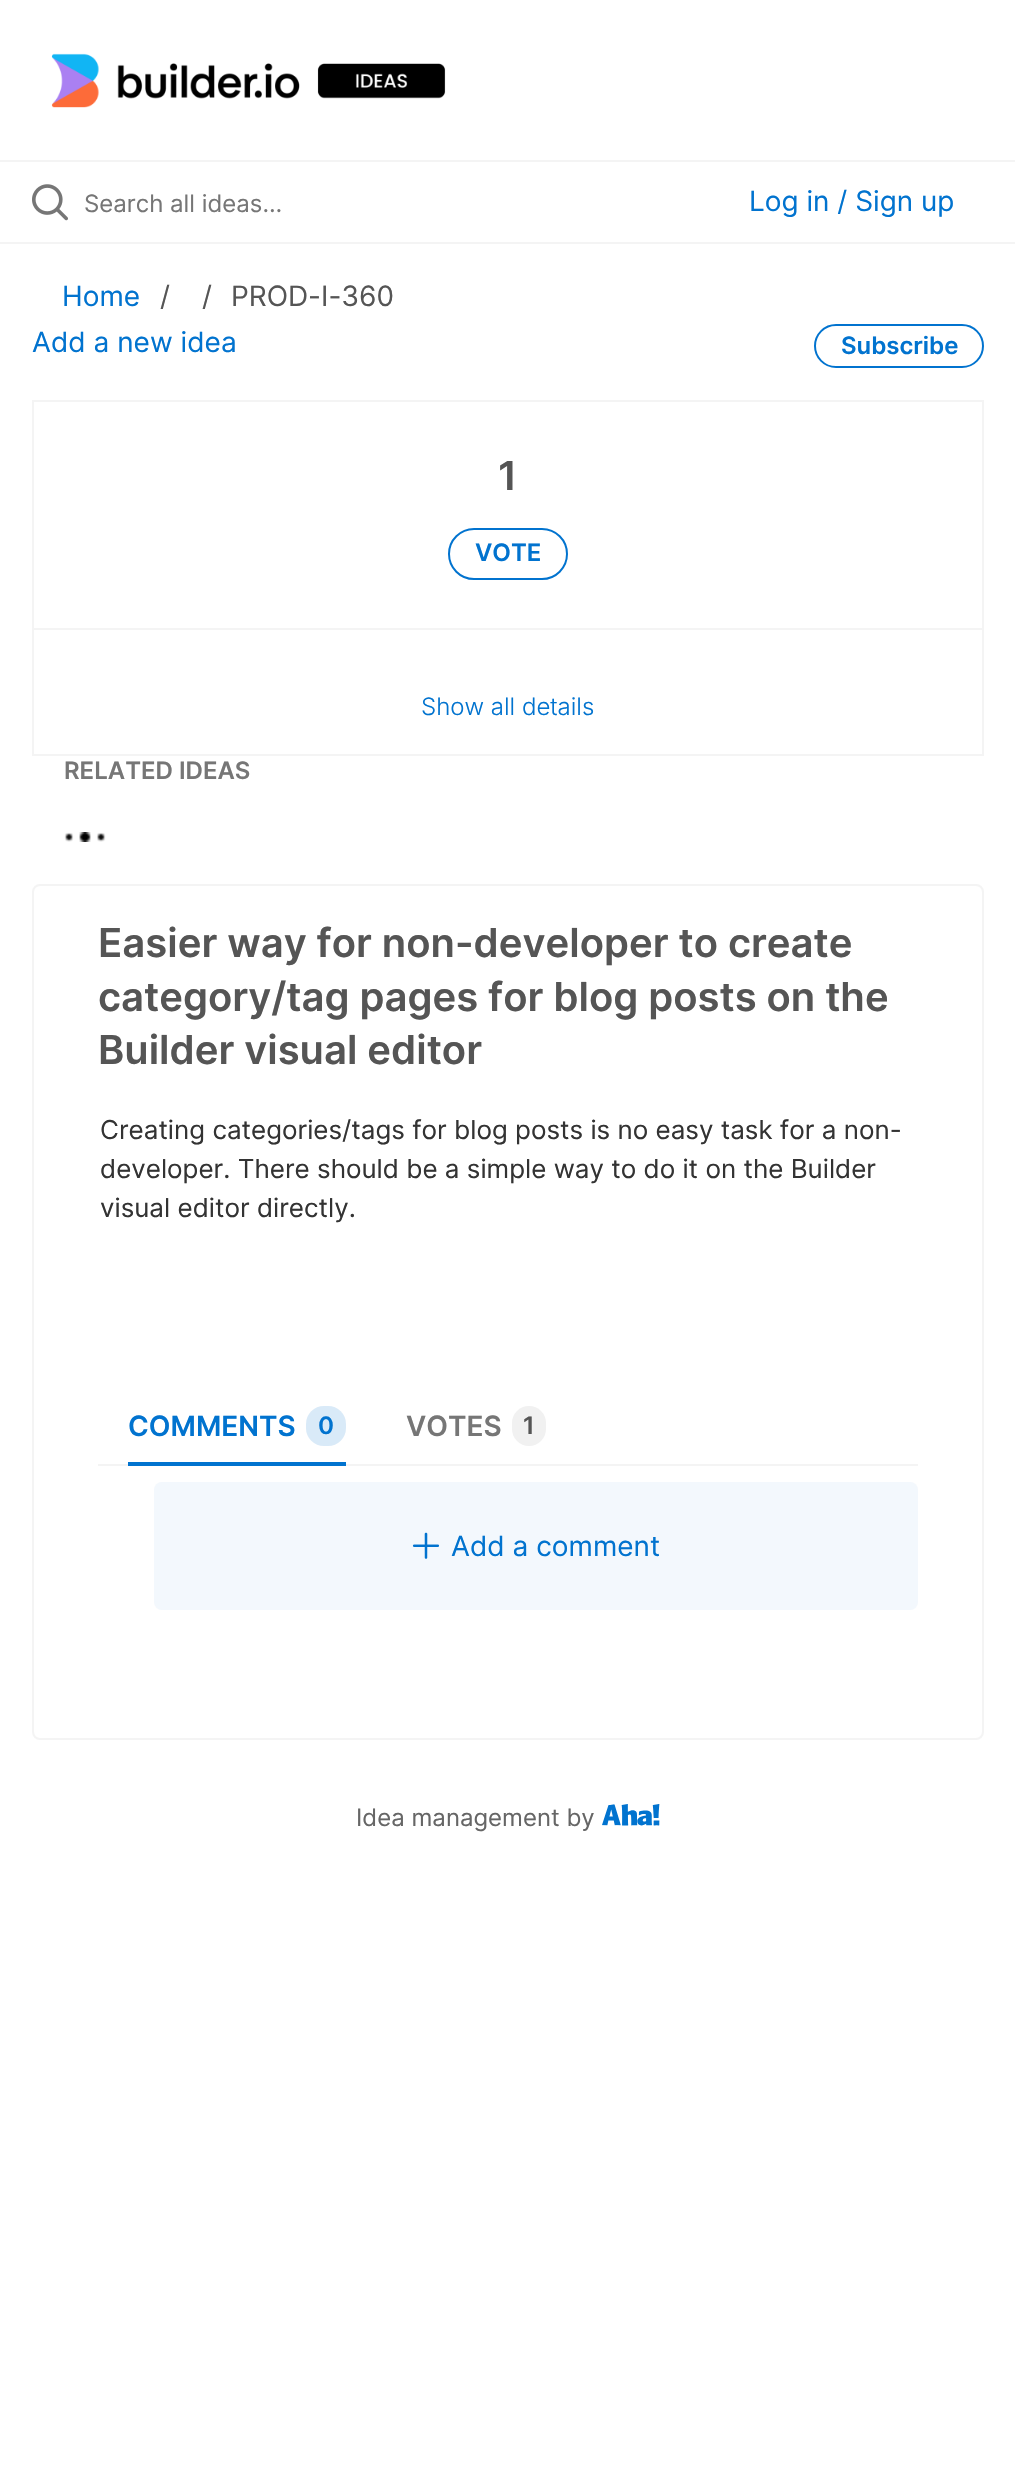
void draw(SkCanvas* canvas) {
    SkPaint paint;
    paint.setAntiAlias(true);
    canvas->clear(0xFFFFFFFF);
    paint.setColor(0xFFF4F4F4);
    canvas->drawRect(SkRect::MakeXYWH(0, 160, 1015, 2), paint);
    canvas->drawImageRect(SkImages::DeferredFromEncodedData(SkData::MakeFromFileName("img1.png")), SkRect::MakeXYWH(51, 53, 395, 55), SkSamplingOptions());
    canvas->drawRect(SkRect::MakeXYWH(0, 242, 1015, 2), paint);
    canvas->drawImageRect(SkImages::DeferredFromEncodedData(SkData::MakeFromFileName("img2.png")), SkRect::MakeXYWH(32, 184, 36, 37), SkSamplingOptions());
    SkFont font1(fontMgr->matchFamilyStyle("Inter", SkFontStyle::Normal()), 24);
    font1.setSubpixel(true);
    paint.setColor(0xFF767676);
    canvas->drawString("Search all ideas…", 84, 212, font1, paint);
    SkFont font2(fontMgr->matchFamilyStyle("Inter", SkFontStyle::Normal()), 28);
    font2.setSubpixel(true);
    paint.setColor(0xFF0173CF);
    canvas->drawString("Log in / Sign up", 749, 211, font2, paint);
    canvas->drawString("Home", 62, 306, font2, paint);
    paint.setColor(0xFF555555);
    canvas->drawString("/", 160, 306, font2, paint);
    canvas->drawString("/", 202, 306, font2, paint);
    canvas->drawString("PROD-I-360", 231, 306, font2, paint);
    paint.setColor(0xFF0173CF);
    canvas->drawString("Add a new idea", 32, 352, font2, paint);
    paint.setStyle(SkPaint::kStroke_Style);
    paint.setStrokeWidth(2);
    canvas->drawRoundRect(SkRect::MakeXYWH(815, 325, 168, 42), 21, 21, paint);
    SkFont font3(fontMgr->matchFamilyStyle("Inter", SkFontStyle(600, SkFontStyle::kNormal_Width, SkFontStyle::kUpright_Slant)), 24);
    font3.setSubpixel(true);
    paint.setStyle(SkPaint::kFill_Style);
    canvas->drawString("Subscribe", 841, 354, font3, paint);
    paint.setStyle(SkPaint::kStroke_Style);
    paint.setColor(0xFFF4F4F4);
    canvas->drawRect(SkRect::MakeXYWH(33, 401, 950, 354), paint);
    SkFont font4(fontMgr->matchFamilyStyle("Inter", SkFontStyle(600, SkFontStyle::kNormal_Width, SkFontStyle::kUpright_Slant)), 40);
    font4.setSubpixel(true);
    paint.setStyle(SkPaint::kFill_Style);
    paint.setColor(0xFF555555);
    canvas->drawString("1", 498, 490, font4, paint);
    paint.setStyle(SkPaint::kStroke_Style);
    paint.setColor(0xFF0173CF);
    canvas->drawRoundRect(SkRect::MakeXYWH(449, 529, 118, 50), 25, 25, paint);
    paint.setStyle(SkPaint::kFill_Style);
    canvas->drawString("VOTE", 475, 561, font3, paint);
    paint.setColor(0xFFF4F4F4);
    canvas->drawRect(SkRect::MakeXYWH(34, 628, 948, 2), paint);
    SkFont font5(fontMgr->matchFamilyStyle("Inter", SkFontStyle(300, SkFontStyle::kNormal_Width, SkFontStyle::kUpright_Slant)), 24);
    font5.setSubpixel(true);
    paint.setColor(0xFF0173CF);
    canvas->drawString("Show all details", 421, 715, font5, paint);
    paint.setColor(0xFF767676);
    canvas->drawString("RELATED IDEAS", 64, 779, font3, paint);
    canvas->drawImageRect(SkImages::DeferredFromEncodedData(SkData::MakeFromFileName("img3.png")), SkRect::MakeXYWH(64, 832, 42, 10), SkSamplingOptions());
    paint.setStyle(SkPaint::kStroke_Style);
    paint.setColor(0xFFF4F4F4);
    canvas->drawRoundRect(SkRect::MakeXYWH(33, 885, 950, 854), 7, 7, paint);
    paint.setStyle(SkPaint::kFill_Style);
    paint.setColor(0xFF555555);
    canvas->drawString("Easier way for non-developer to create", 98, 957, font4, paint);
    canvas->drawString("category/tag pages for blog posts on the", 98, 1011, font4, paint);
    canvas->drawString("Builder visual editor", 98, 1064, font4, paint);
    SkFont font6(fontMgr->matchFamilyStyle("Inter", SkFontStyle::Normal()), 26);
    font6.setSubpixel(true);
    paint.setColor(0xFF333333);
    canvas->drawString("Creating categories/tags for blog posts is no easy task for a non-", 100, 1139, font6, paint);
    canvas->drawString("developer. There should be a simple way to do it on the Builder", 100, 1178, font6, paint);
    canvas->drawString("visual editor directly.", 100, 1217, font6, paint);
    paint.setColor(0xFFF4F4F4);
    canvas->drawRect(SkRect::MakeXYWH(98, 1464, 820, 2), paint);
    paint.setColor(0xFF0173CF);
    canvas->drawRect(SkRect::MakeXYWH(128, 1462, 218, 4), paint);
    SkFont font7(fontMgr->matchFamilyStyle("Inter", SkFontStyle(600, SkFontStyle::kNormal_Width, SkFontStyle::kUpright_Slant)), 28);
    font7.setSubpixel(true);
    canvas->drawString("COMMENTS", 128, 1436, font7, paint);
    paint.setColor(0xFFD9EAF8);
    canvas->drawRoundRect(SkRect::MakeXYWH(306, 1406, 40, 40), 18, 18, paint);
    paint.setColor(0xFF0173CF);
    canvas->drawString("0", 318, 1434, font3, paint);
    paint.setColor(0xFF767676);
    canvas->drawString("VOTES", 406, 1436, font7, paint);
    paint.setColor(0xFFF1F1F1);
    canvas->drawRoundRect(SkRect::MakeXYWH(512, 1406, 34, 40), 17, 17, paint);
    paint.setColor(0xFF555555);
    canvas->drawString("1", 523, 1434, font3, paint);
    paint.setColor(0xFFF3F8FD);
    canvas->drawRoundRect(SkRect::MakeXYWH(154, 1482, 764, 128), 8, 8, paint);
    canvas->drawImageRect(SkImages::DeferredFromEncodedData(SkData::MakeFromFileName("img4.png")), SkRect::MakeXYWH(412, 1532, 28, 27), SkSamplingOptions());
    paint.setColor(0xFF0173CF);
    canvas->drawString("Add a comment", 451, 1556, font2, paint);
    paint.setColor(0xFF666666);
    canvas->drawString("Idea management by", 356, 1826, font1, paint);
    canvas->drawImageRect(SkImages::DeferredFromEncodedData(SkData::MakeFromFileName("img5.png")), SkRect::MakeXYWH(602, 1804, 58, 22), SkSamplingOptions());
}
